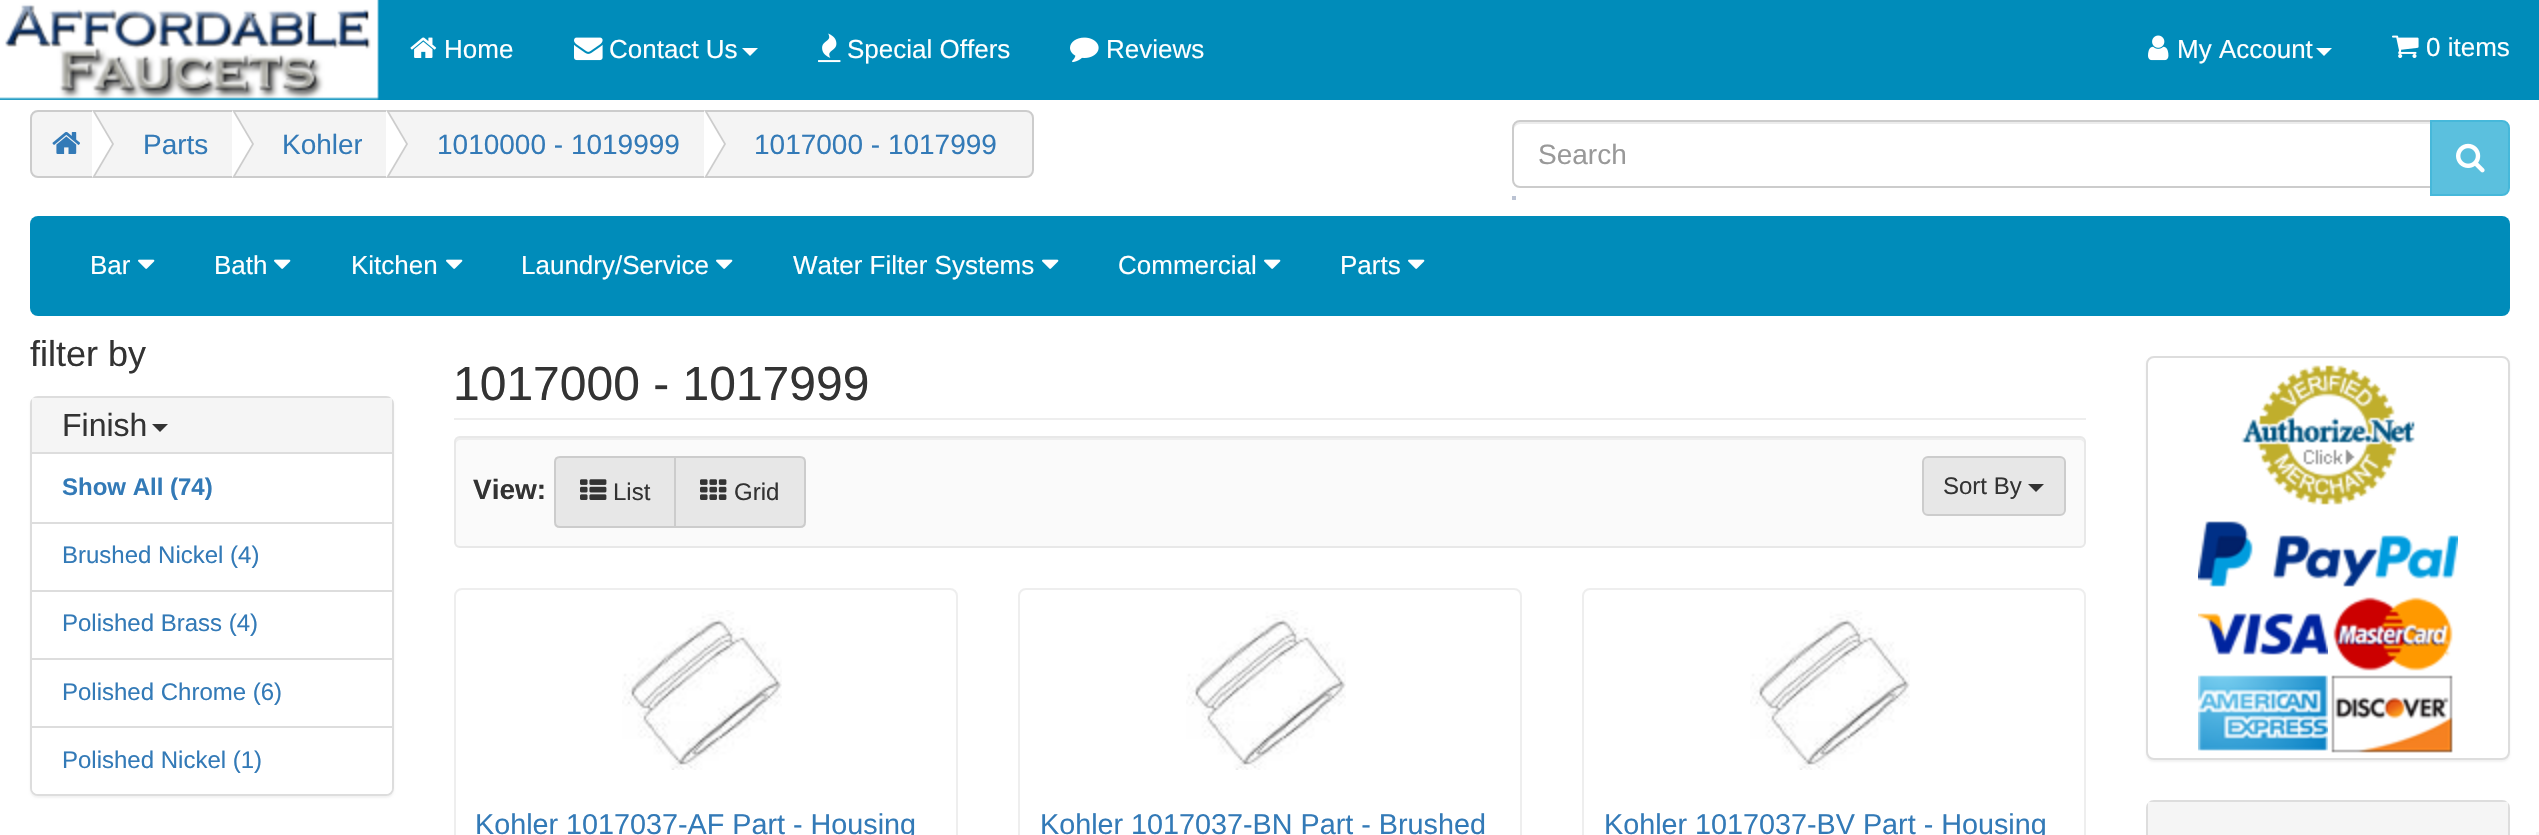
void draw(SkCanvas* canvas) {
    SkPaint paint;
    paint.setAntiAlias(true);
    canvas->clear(0xFFFFFFFF);
    paint.setColor(0xFF008CBA);
    canvas->drawRect(SkRect::MakeXYWH(0, 0, 2539, 100), paint);
    canvas->drawImageRect(SkImages::DeferredFromEncodedData(SkData::MakeFromFileName("img1.png")), SkRect::MakeXYWH(0, 0, 379, 100), SkSamplingOptions());
    canvas->drawImageRect(SkImages::DeferredFromEncodedData(SkData::MakeFromFileName("img2.png")), SkRect::MakeXYWH(410, 37, 27, 21), SkSamplingOptions());
    SkFont font1(fontMgr->matchFamilyStyle("Liberation Sans", SkFontStyle::Normal()), 26);
    font1.setSubpixel(true);
    paint.setColor(0xFFFFFFFF);
    canvas->drawString("Home", 444, 58, font1, paint);
    canvas->drawImageRect(SkImages::DeferredFromEncodedData(SkData::MakeFromFileName("img3.png")), SkRect::MakeXYWH(574, 37, 29, 24), SkSamplingOptions());
    canvas->drawString("Contact Us", 609, 58, font1, paint);
    canvas->drawPath(SkPathBuilder().moveTo(742, 48).lineTo(758, 48).lineTo(750, 56).close().detach(), paint);
    canvas->drawImageRect(SkImages::DeferredFromEncodedData(SkData::MakeFromFileName("img4.png")), SkRect::MakeXYWH(818, 33, 23, 30), SkSamplingOptions());
    canvas->drawString("Special Offers", 847, 58, font1, paint);
    canvas->drawImageRect(SkImages::DeferredFromEncodedData(SkData::MakeFromFileName("img5.png")), SkRect::MakeXYWH(1070, 37, 29, 26), SkSamplingOptions());
    canvas->drawString("Reviews", 1106, 58, font1, paint);
    canvas->drawImageRect(SkImages::DeferredFromEncodedData(SkData::MakeFromFileName("img6.png")), SkRect::MakeXYWH(2148, 35, 21, 26), SkSamplingOptions());
    canvas->drawString("My Account", 2177, 58, font1, paint);
    canvas->drawPath(SkPathBuilder().moveTo(2316, 48).lineTo(2332, 48).lineTo(2324, 56).close().detach(), paint);
    canvas->drawImageRect(SkImages::DeferredFromEncodedData(SkData::MakeFromFileName("img7.png")), SkRect::MakeXYWH(2392, 35, 27, 23), SkSamplingOptions());
    canvas->drawString("0 items", 2426, 56, font1, paint);
    paint.setColor(0xFFF4F4F4);
    canvas->drawPath(SkPathBuilder().moveTo(38, 111).lineTo(93, 111).lineTo(93, 177).lineTo(38, 177).cubicTo(34, 177, 31, 174, 31, 170).lineTo(31, 118).cubicTo(31, 114, 34, 111, 38, 111).close().detach(), paint);
    paint.setStyle(SkPaint::kStroke_Style);
    paint.setStrokeWidth(2);
    paint.setColor(0xFFCCCCCC);
    canvas->drawPath(SkPathBuilder().moveTo(38, 111).lineTo(93, 111).lineTo(93, 177).lineTo(38, 177).cubicTo(34, 177, 31, 174, 31, 170).lineTo(31, 118).cubicTo(31, 114, 34, 111, 38, 111).close().detach(), paint);
    paint.setStyle(SkPaint::kFill_Style);
    paint.setColor(0xFFF4F4F4);
    canvas->drawRect(SkRect::MakeXYWH(95, 112, 137, 64), paint);
    paint.setStyle(SkPaint::kStroke_Style);
    paint.setColor(0xFFCCCCCC);
    canvas->drawRect(SkRect::MakeXYWH(93, 111, 140, 66), paint);
    paint.setStyle(SkPaint::kFill_Style);
    canvas->drawPath(SkPathBuilder().moveTo(94, 178).lineTo(94, 110).lineTo(114, 144).close().detach(), paint);
    paint.setColor(0xFFFFFFFF);
    canvas->drawPath(SkPathBuilder().moveTo(92, 178).lineTo(92, 110).lineTo(112, 144).close().detach(), paint);
    canvas->drawImageRect(SkImages::DeferredFromEncodedData(SkData::MakeFromFileName("img8.png")), SkRect::MakeXYWH(52, 132, 28, 22), SkSamplingOptions());
    paint.setColor(0xFFF4F4F4);
    canvas->drawRect(SkRect::MakeXYWH(235, 112, 151, 64), paint);
    paint.setStyle(SkPaint::kStroke_Style);
    paint.setColor(0xFFCCCCCC);
    canvas->drawRect(SkRect::MakeXYWH(233, 111, 154, 66), paint);
    paint.setStyle(SkPaint::kFill_Style);
    canvas->drawPath(SkPathBuilder().moveTo(234, 178).lineTo(234, 110).lineTo(254, 144).close().detach(), paint);
    paint.setColor(0xFFFFFFFF);
    canvas->drawPath(SkPathBuilder().moveTo(232, 178).lineTo(232, 110).lineTo(252, 144).close().detach(), paint);
    SkFont font2(fontMgr->matchFamilyStyle("Liberation Sans", SkFontStyle::Normal()), 28);
    font2.setSubpixel(true);
    paint.setColor(0xFF337AB7);
    canvas->drawString("Parts", 143, 154, font2, paint);
    paint.setColor(0xFFF4F4F4);
    canvas->drawRect(SkRect::MakeXYWH(389, 112, 315, 64), paint);
    paint.setStyle(SkPaint::kStroke_Style);
    paint.setColor(0xFFCCCCCC);
    canvas->drawRect(SkRect::MakeXYWH(387, 111, 318, 66), paint);
    paint.setStyle(SkPaint::kFill_Style);
    canvas->drawPath(SkPathBuilder().moveTo(388, 178).lineTo(388, 110).lineTo(408, 144).close().detach(), paint);
    paint.setColor(0xFFFFFFFF);
    canvas->drawPath(SkPathBuilder().moveTo(386, 178).lineTo(386, 110).lineTo(406, 144).close().detach(), paint);
    canvas->save();
    canvas->clipRect(SkRect::MakeXYWH(282, 124, 80, 40));
    paint.setColor(0xFF337AB7);
    canvas->drawString("Kohler", 282, 154, font2, paint);
    canvas->restore();
    paint.setColor(0xFFF4F4F4);
    canvas->drawPath(SkPathBuilder().moveTo(705, 111).lineTo(1026, 111).cubicTo(1030, 111, 1033, 114, 1033, 118).lineTo(1033, 170).cubicTo(1033, 174, 1030, 177, 1026, 177).lineTo(705, 177).close().detach(), paint);
    paint.setStyle(SkPaint::kStroke_Style);
    paint.setColor(0xFFCCCCCC);
    canvas->drawPath(SkPathBuilder().moveTo(705, 111).lineTo(1026, 111).cubicTo(1030, 111, 1033, 114, 1033, 118).lineTo(1033, 170).cubicTo(1033, 174, 1030, 177, 1026, 177).lineTo(705, 177).close().detach(), paint);
    paint.setStyle(SkPaint::kFill_Style);
    canvas->drawPath(SkPathBuilder().moveTo(706, 178).lineTo(706, 110).lineTo(726, 144).close().detach(), paint);
    paint.setColor(0xFFFFFFFF);
    canvas->drawPath(SkPathBuilder().moveTo(704, 178).lineTo(704, 110).lineTo(724, 144).close().detach(), paint);
    paint.setColor(0xFF337AB7);
    canvas->drawString("1010000 - 1019999", 437, 154, font2, paint);
    canvas->drawString("1017000 - 1017999", 754, 154, font2, paint);
    paint.setColor(0xFFECECEC);
    canvas->drawPath(SkPathBuilder().moveTo(1520, 124).lineTo(2430, 124).lineTo(2430, 122).lineTo(1520, 122).cubicTo(1515, 122, 1514, 126, 1514, 130).cubicTo(1514, 127, 1517, 124, 1520, 124).close().detach(), paint);
    paint.setStyle(SkPaint::kStroke_Style);
    paint.setColor(0xFFCCCCCC);
    canvas->drawPath(SkPathBuilder().moveTo(1520, 121).lineTo(2431, 121).lineTo(2431, 187).lineTo(1520, 187).cubicTo(1516, 187, 1513, 184, 1513, 180).lineTo(1513, 128).cubicTo(1513, 124, 1516, 121, 1520, 121).close().detach(), paint);
    paint.setStyle(SkPaint::kFill_Style);
    paint.setColor(0xFF999999);
    canvas->drawString("Search", 1538, 164, font2, paint);
    paint.setColor(0xFF5BC0DE);
    canvas->drawPath(SkPathBuilder().moveTo(2431, 121).lineTo(2502, 121).cubicTo(2506, 121, 2509, 124, 2509, 128).lineTo(2509, 188).cubicTo(2509, 192, 2506, 195, 2502, 195).lineTo(2431, 195).close().detach(), paint);
    paint.setStyle(SkPaint::kStroke_Style);
    paint.setColor(0xFF46B8DA);
    canvas->drawPath(SkPathBuilder().moveTo(2431, 121).lineTo(2502, 121).cubicTo(2506, 121, 2509, 124, 2509, 128).lineTo(2509, 188).cubicTo(2509, 192, 2506, 195, 2502, 195).lineTo(2431, 195).close().detach(), paint);
    canvas->drawImageRect(SkImages::DeferredFromEncodedData(SkData::MakeFromFileName("img9.png")), SkRect::MakeXYWH(2456, 143, 29, 30), SkSamplingOptions());
    paint.setStyle(SkPaint::kFill_Style);
    paint.setColor(0xFFBBC3D3);
    canvas->drawRect(SkRect::MakeXYWH(1512, 196, 4, 4), paint);
    paint.setColor(0xFF008CBA);
    canvas->drawRoundRect(SkRect::MakeXYWH(30, 216, 2480, 100), 8, 8, paint);
    paint.setColor(0xFFFFFFFF);
    canvas->drawString("Bar", 90, 274, font1, paint);
    canvas->drawImageRect(SkImages::DeferredFromEncodedData(SkData::MakeFromFileName("img10.png")), SkRect::MakeXYWH(138, 259, 17, 10), SkSamplingOptions());
    canvas->drawString("Bath", 214, 274, font1, paint);
    canvas->drawImageRect(SkImages::DeferredFromEncodedData(SkData::MakeFromFileName("img10.png")), SkRect::MakeXYWH(274, 259, 17, 10), SkSamplingOptions());
    canvas->drawString("Kitchen", 351, 274, font1, paint);
    canvas->drawImageRect(SkImages::DeferredFromEncodedData(SkData::MakeFromFileName("img10.png")), SkRect::MakeXYWH(446, 259, 17, 10), SkSamplingOptions());
    canvas->drawString("Laundry/Service", 521, 274, font1, paint);
    canvas->drawImageRect(SkImages::DeferredFromEncodedData(SkData::MakeFromFileName("img10.png")), SkRect::MakeXYWH(716, 259, 17, 10), SkSamplingOptions());
    canvas->drawString("Water Filter Systems", 793, 274, font1, paint);
    canvas->drawImageRect(SkImages::DeferredFromEncodedData(SkData::MakeFromFileName("img10.png")), SkRect::MakeXYWH(1042, 259, 17, 10), SkSamplingOptions());
    canvas->drawString("Commercial", 1118, 274, font1, paint);
    canvas->drawImageRect(SkImages::DeferredFromEncodedData(SkData::MakeFromFileName("img10.png")), SkRect::MakeXYWH(1264, 259, 17, 10), SkSamplingOptions());
    canvas->drawString("Parts", 1340, 274, font1, paint);
    canvas->drawImageRect(SkImages::DeferredFromEncodedData(SkData::MakeFromFileName("img10.png")), SkRect::MakeXYWH(1408, 259, 17, 10), SkSamplingOptions());
    SkFont font3(fontMgr->matchFamilyStyle("Liberation Sans", SkFontStyle::Normal()), 36);
    font3.setSubpixel(true);
    paint.setColor(0xFF333333);
    canvas->drawString("filter by", 30, 366, font3, paint);
    paint.setColor(0x0D000000);
    paint.setMaskFilter(SkMaskFilter::MakeBlur(kNormal_SkBlurStyle, 1));
    canvas->drawRoundRect(SkRect::MakeXYWH(30, 398, 364, 400), 8, 8, paint);
    paint.setMaskFilter(nullptr);
    paint.setColor(0xFFFFFFFF);
    canvas->drawRoundRect(SkRect::MakeXYWH(31, 397, 362, 398), 7, 7, paint);
    paint.setStyle(SkPaint::kStroke_Style);
    paint.setColor(0xFFDDDDDD);
    canvas->drawRoundRect(SkRect::MakeXYWH(31, 397, 362, 398), 7, 7, paint);
    paint.setStyle(SkPaint::kFill_Style);
    paint.setColor(0xFFF5F5F5);
    canvas->drawRect(SkRect::MakeXYWH(32, 398, 360, 54), paint);
    SkFont font4(fontMgr->matchFamilyStyle("Liberation Sans", SkFontStyle::Normal()), 32);
    font4.setSubpixel(true);
    paint.setColor(0xFF333333);
    canvas->drawString("Finish", 62, 436, font4, paint);
    canvas->drawPath(SkPathBuilder().moveTo(152, 424).lineTo(168, 424).lineTo(160, 432).close().detach(), paint);
    paint.setColor(0xFFDDDDDD);
    canvas->drawRect(SkRect::MakeXYWH(32, 452, 360, 2), paint);
    canvas->drawRect(SkRect::MakeXYWH(32, 522, 360, 2), paint);
    SkFont font5(fontMgr->matchFamilyStyle("Liberation Sans", SkFontStyle::Bold()), 24);
    font5.setSubpixel(true);
    paint.setColor(0xFF337AB7);
    canvas->drawString("Show All (74)", 62, 495, font5, paint);
    paint.setColor(0xFFDDDDDD);
    canvas->drawRect(SkRect::MakeXYWH(32, 590, 360, 2), paint);
    SkFont font6(fontMgr->matchFamilyStyle("Liberation Sans", SkFontStyle::Normal()), 24);
    font6.setSubpixel(true);
    paint.setColor(0xFF337AB7);
    canvas->drawString("Brushed Nickel (4)", 62, 563, font6, paint);
    paint.setColor(0xFFDDDDDD);
    canvas->drawRect(SkRect::MakeXYWH(32, 658, 360, 2), paint);
    paint.setColor(0xFF337AB7);
    canvas->drawString("Polished Brass (4)", 62, 631, font6, paint);
    canvas->drawString("Polished Chrome (6)", 62, 700, font6, paint);
    paint.setColor(0xFFFFFFFF);
    canvas->drawPath(SkPathBuilder().moveTo(32, 726).lineTo(392, 726).lineTo(392, 788).cubicTo(392, 791.5f, 389.5f, 794, 386, 794).lineTo(38, 794).cubicTo(34.5f, 794, 32, 791.5f, 32, 788).close().detach(), paint);
    paint.setColor(0xFFDDDDDD);
    canvas->drawRect(SkRect::MakeXYWH(32, 726, 360, 2), paint);
    paint.setColor(0xFF337AB7);
    canvas->drawString("Polished Nickel (1)", 62, 768, font6, paint);
    paint.setColor(0xFFEEEEEE);
    canvas->drawRect(SkRect::MakeXYWH(454, 418, 1632, 2), paint);
    SkFont font7(fontMgr->matchFamilyStyle("Liberation Sans", SkFontStyle::Normal()), 48);
    font7.setSubpixel(true);
    paint.setColor(0xFF333333);
    canvas->drawString("1017000 - 1017999", 453, 400, font7, paint);
    paint.setColor(0xFFFAFAFA);
    canvas->drawRoundRect(SkRect::MakeXYWH(454, 436, 1632, 112), 6, 6, paint);
    paint.setColor(0xFFEEEEEE);
    canvas->drawPath(SkPathBuilder().moveTo(460, 440).lineTo(2080, 440).cubicTo(2082, 440, 2084, 442, 2084, 444).cubicTo(2084, 441, 2084, 438, 2080, 438).lineTo(460, 438).cubicTo(456, 438, 456, 441, 456, 444).cubicTo(456, 442, 458, 440, 460, 440).close().detach(), paint);
    paint.setStyle(SkPaint::kStroke_Style);
    paint.setColor(0xFFE8E8E8);
    canvas->drawRoundRect(SkRect::MakeXYWH(455, 437, 1630, 110), 5, 5, paint);
    SkFont font8(fontMgr->matchFamilyStyle("Liberation Sans", SkFontStyle::Bold()), 28);
    font8.setSubpixel(true);
    paint.setStyle(SkPaint::kFill_Style);
    paint.setColor(0xFF333333);
    canvas->drawString("View:", 473, 499, font8, paint);
    paint.setColor(0xFFE7E7E7);
    canvas->drawPath(SkPathBuilder().moveTo(560, 457).lineTo(675, 457).lineTo(675, 527).lineTo(560, 527).cubicTo(557, 527, 555, 525, 555, 522).lineTo(555, 462).cubicTo(555, 459, 557, 457, 560, 457).close().detach(), paint);
    paint.setStyle(SkPaint::kStroke_Style);
    paint.setColor(0xFFCCCCCC);
    canvas->drawPath(SkPathBuilder().moveTo(560, 457).lineTo(675, 457).lineTo(675, 527).lineTo(560, 527).cubicTo(557, 527, 555, 525, 555, 522).lineTo(555, 462).cubicTo(555, 459, 557, 457, 560, 457).close().detach(), paint);
    canvas->drawImageRect(SkImages::DeferredFromEncodedData(SkData::MakeFromFileName("img11.png")), SkRect::MakeXYWH(580, 479, 27, 21), SkSamplingOptions());
    paint.setStyle(SkPaint::kFill_Style);
    paint.setColor(0xFF333333);
    canvas->drawString("List", 613, 500, font6, paint);
    paint.setColor(0xFFE7E7E7);
    canvas->drawPath(SkPathBuilder().moveTo(675, 457).lineTo(800, 457).cubicTo(803, 457, 805, 459, 805, 462).lineTo(805, 522).cubicTo(805, 525, 803, 527, 800, 527).lineTo(675, 527).close().detach(), paint);
    paint.setStyle(SkPaint::kStroke_Style);
    paint.setColor(0xFFCCCCCC);
    canvas->drawPath(SkPathBuilder().moveTo(675, 457).lineTo(800, 457).cubicTo(803, 457, 805, 459, 805, 462).lineTo(805, 522).cubicTo(805, 525, 803, 527, 800, 527).lineTo(675, 527).close().detach(), paint);
    canvas->drawImageRect(SkImages::DeferredFromEncodedData(SkData::MakeFromFileName("img12.png")), SkRect::MakeXYWH(700, 479, 27, 21), SkSamplingOptions());
    paint.setStyle(SkPaint::kFill_Style);
    paint.setColor(0xFF333333);
    canvas->drawString("Grid", 734, 500, font6, paint);
    paint.setColor(0xFFE7E7E7);
    canvas->drawRoundRect(SkRect::MakeXYWH(1923, 457, 142, 58), 5, 5, paint);
    paint.setStyle(SkPaint::kStroke_Style);
    paint.setColor(0xFFCCCCCC);
    canvas->drawRoundRect(SkRect::MakeXYWH(1923, 457, 142, 58), 5, 5, paint);
    paint.setStyle(SkPaint::kFill_Style);
    paint.setColor(0xFF333333);
    canvas->drawString("Sort By", 1943, 494, font6, paint);
    canvas->drawPath(SkPathBuilder().moveTo(2028, 484).lineTo(2044, 484).lineTo(2036, 492).close().detach(), paint);
    paint.setStyle(SkPaint::kStroke_Style);
    paint.setColor(0xFFEEEEEE);
    canvas->drawRoundRect(SkRect::MakeXYWH(455, 589, 502, 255), 7, 7, paint);
    canvas->drawImageRect(SkImages::DeferredFromEncodedData(SkData::MakeFromFileName("img13.png")), SkRect::MakeXYWH(622, 610, 160, 160), SkSamplingOptions());
    SkFont font9(fontMgr->matchFamilyStyle("Liberation Sans", SkFontStyle::Normal()), 28.75f);
    font9.setSubpixel(true);
    paint.setStyle(SkPaint::kFill_Style);
    paint.setColor(0xFF337AB7);
    canvas->drawString("Kohler 1017037-AF Part - Housing", 475, 834, font9, paint);
    paint.setStyle(SkPaint::kStroke_Style);
    paint.setColor(0xFFEEEEEE);
    canvas->drawRoundRect(SkRect::MakeXYWH(1019, 589, 502, 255), 7, 7, paint);
    canvas->drawImageRect(SkImages::DeferredFromEncodedData(SkData::MakeFromFileName("img13.png")), SkRect::MakeXYWH(1186, 610, 160, 160), SkSamplingOptions());
    paint.setStyle(SkPaint::kFill_Style);
    paint.setColor(0xFF337AB7);
    canvas->drawString("Kohler 1017037-BN Part - Brushed", 1040, 834, font9, paint);
    paint.setStyle(SkPaint::kStroke_Style);
    paint.setColor(0xFFEEEEEE);
    canvas->drawRoundRect(SkRect::MakeXYWH(1583, 589, 502, 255), 7, 7, paint);
    canvas->drawImageRect(SkImages::DeferredFromEncodedData(SkData::MakeFromFileName("img13.png")), SkRect::MakeXYWH(1750, 610, 160, 160), SkSamplingOptions());
    paint.setStyle(SkPaint::kFill_Style);
    paint.setColor(0xFF337AB7);
    canvas->drawString("Kohler 1017037-BV Part - Housing", 1604, 834, font9, paint);
    paint.setColor(0x0D000000);
    paint.setMaskFilter(SkMaskFilter::MakeBlur(kNormal_SkBlurStyle, 1));
    canvas->drawRoundRect(SkRect::MakeXYWH(2146, 358, 364, 404), 8, 8, paint);
    paint.setMaskFilter(nullptr);
    paint.setColor(0xFFFFFFFF);
    canvas->drawRoundRect(SkRect::MakeXYWH(2147, 357, 362, 402), 7, 7, paint);
    paint.setStyle(SkPaint::kStroke_Style);
    paint.setColor(0xFFDDDDDD);
    canvas->drawRoundRect(SkRect::MakeXYWH(2147, 357, 362, 402), 7, 7, paint);
    canvas->drawImageRect(SkImages::DeferredFromEncodedData(SkData::MakeFromFileName("img14.png")), SkRect::MakeXYWH(2241, 365, 174, 140), SkSamplingOptions());
    canvas->drawImageRect(SkImages::DeferredFromEncodedData(SkData::MakeFromFileName("img15.png")), SkRect::MakeXYWH(2198, 521, 260, 66), SkSamplingOptions());
    canvas->drawImageRect(SkImages::DeferredFromEncodedData(SkData::MakeFromFileName("img16.png")), SkRect::MakeXYWH(2198, 613, 130, 42), SkSamplingOptions());
    canvas->drawImageRect(SkImages::DeferredFromEncodedData(SkData::MakeFromFileName("img17.png")), SkRect::MakeXYWH(2333, 597, 120, 74), SkSamplingOptions());
    canvas->drawImageRect(SkImages::DeferredFromEncodedData(SkData::MakeFromFileName("img18.png")), SkRect::MakeXYWH(2198, 675, 130, 76), SkSamplingOptions());
    canvas->drawImageRect(SkImages::DeferredFromEncodedData(SkData::MakeFromFileName("img19.png")), SkRect::MakeXYWH(2331, 675, 122, 78), SkSamplingOptions());
    canvas->drawRoundRect(SkRect::MakeXYWH(2147, 801, 362, 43), 7, 7, paint);
    paint.setStyle(SkPaint::kFill_Style);
    paint.setColor(0xFFF5F5F5);
    canvas->drawRect(SkRect::MakeXYWH(2148, 802, 360, 33), paint);
    canvas->drawRect(SkRect::MakeXYWH(2536, 832, 3, 3), paint);
}
